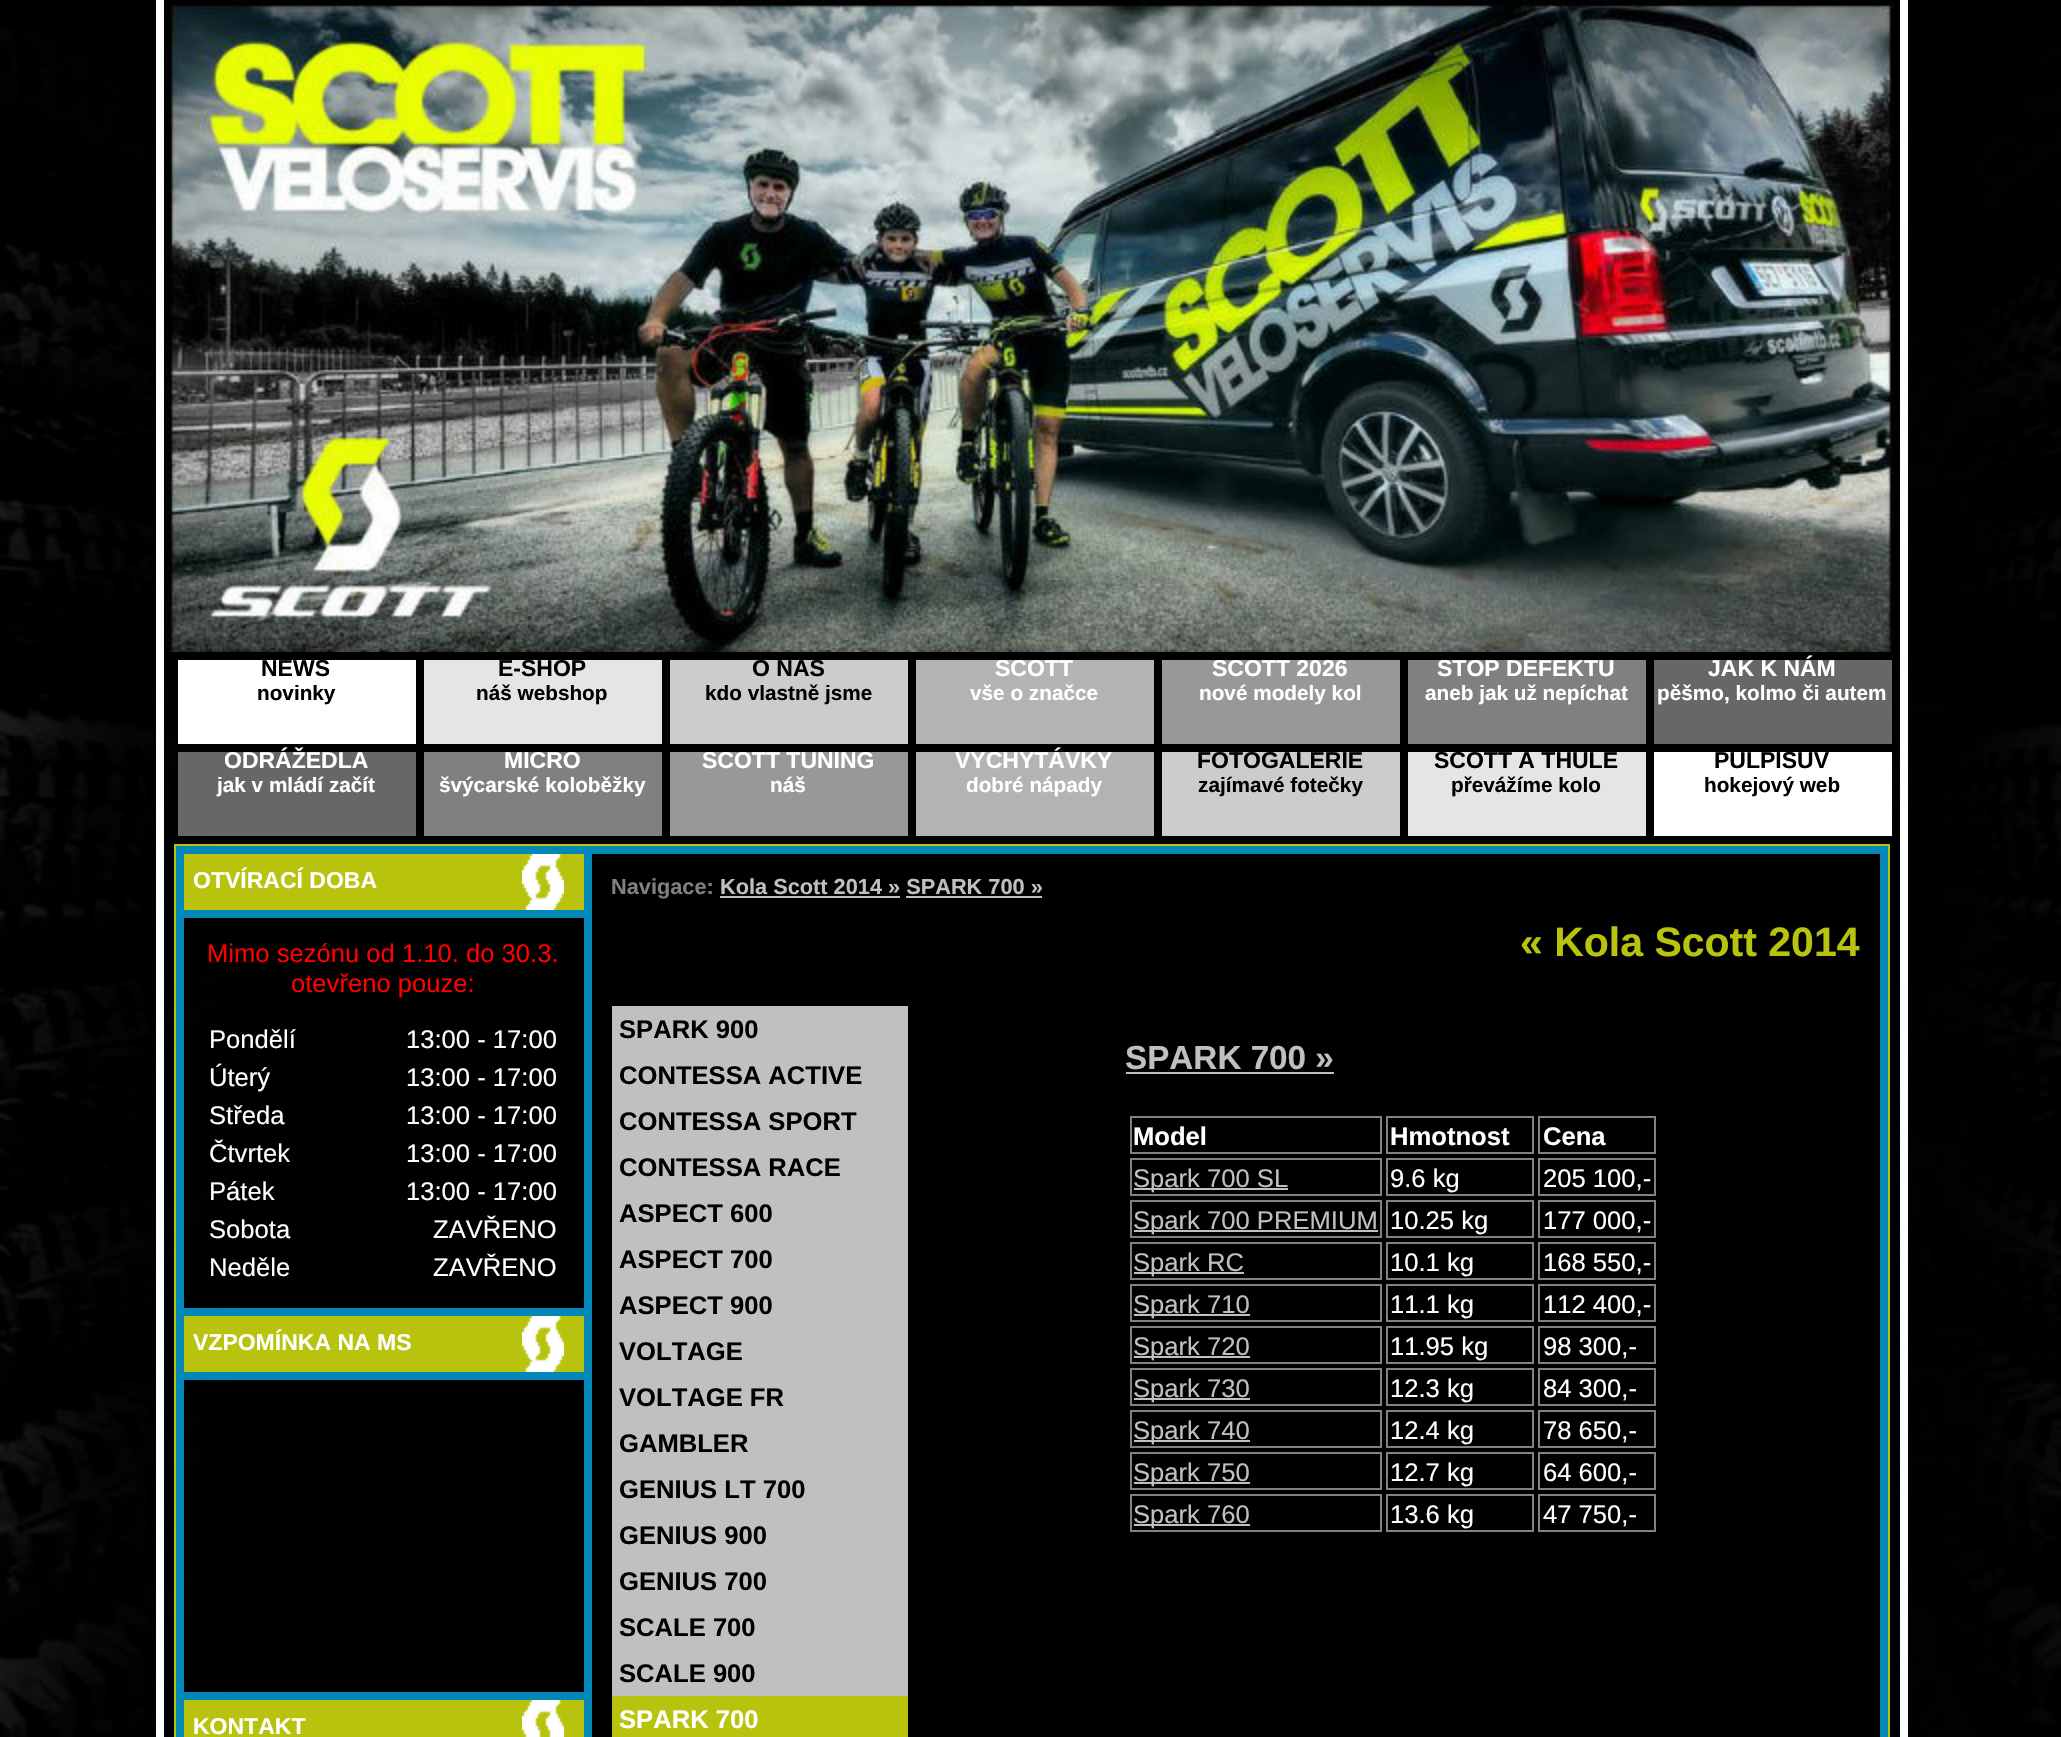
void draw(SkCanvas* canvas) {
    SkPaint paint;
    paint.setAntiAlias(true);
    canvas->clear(0xFF000000);
    canvas->drawImageRect(SkImages::DeferredFromEncodedData(SkData::MakeFromFileName("img1.png")), SkRect::MakeXYWH(0, 29, 2061, 1708), SkSamplingOptions());
    canvas->drawImageRect(SkImages::DeferredFromEncodedData(SkData::MakeFromFileName("img2.png")), SkRect::MakeXYWH(166, 0, 1728, 652), SkSamplingOptions());
    paint.setColor(0xFFFFFFFF);
    canvas->drawRect(SkRect::MakeXYWH(1900, 0, 8, 1737), paint);
    canvas->drawRect(SkRect::MakeXYWH(156, 0, 8, 1737), paint);
    canvas->drawRect(SkRect::MakeXYWH(178, 660, 238, 84), paint);
    SkFont font1(fontMgr->matchFamilyStyle("Liberation Sans", SkFontStyle::Bold()), 23);
    font1.setSubpixel(true);
    paint.setColor(0xFF000000);
    canvas->drawString("NEWS", 261, 676, font1, paint);
    SkFont font2(fontMgr->matchFamilyStyle("Liberation Sans", SkFontStyle::Bold()), 20.75f);
    font2.setSubpixel(true);
    canvas->drawString("novinky", 257, 700, font2, paint);
    paint.setColor(0xFFE5E5E5);
    canvas->drawRect(SkRect::MakeXYWH(424, 660, 238, 84), paint);
    paint.setColor(0xFF000000);
    canvas->drawString("E-SHOP", 498, 676, font1, paint);
    canvas->drawString("náš webshop", 476, 700, font2, paint);
    paint.setColor(0xFFCDCCCC);
    canvas->drawRect(SkRect::MakeXYWH(670, 660, 238, 84), paint);
    paint.setColor(0xFF000000);
    canvas->drawString("O NÁS", 752, 676, font1, paint);
    canvas->drawString("kdo vlastně jsme", 705, 700, font2, paint);
    paint.setColor(0xFFB3B3B3);
    canvas->drawRect(SkRect::MakeXYWH(916, 660, 238, 84), paint);
    paint.setColor(0xFFFFFFFF);
    canvas->drawString("SCOTT", 995, 676, font1, paint);
    canvas->drawString("vše o značce", 970, 700, font2, paint);
    paint.setColor(0xFF989898);
    canvas->drawRect(SkRect::MakeXYWH(1162, 660, 238, 84), paint);
    paint.setColor(0xFFFFFFFF);
    canvas->drawString("SCOTT 2026", 1212, 676, font1, paint);
    canvas->drawString("nové modely kol", 1199, 700, font2, paint);
    paint.setColor(0xFF808080);
    canvas->drawRect(SkRect::MakeXYWH(1408, 660, 238, 84), paint);
    paint.setColor(0xFFFFFFFF);
    canvas->drawString("STOP DEFEKTU", 1437, 676, font1, paint);
    canvas->drawString("aneb jak už nepíchat", 1425, 700, font2, paint);
    paint.setColor(0xFF676767);
    canvas->drawRect(SkRect::MakeXYWH(1654, 660, 238, 84), paint);
    paint.setColor(0xFFFFFFFF);
    canvas->drawString("JAK K NÁM", 1708, 676, font1, paint);
    canvas->drawString("pěšmo, kolmo či autem", 1657, 700, font2, paint);
    paint.setColor(0xFF676767);
    canvas->drawRect(SkRect::MakeXYWH(178, 752, 238, 84), paint);
    paint.setColor(0xFFFFFFFF);
    canvas->drawString("ODRÁŽEDLA", 224, 768, font1, paint);
    canvas->drawString("jak v mládí začít", 217, 792, font2, paint);
    paint.setColor(0xFF808080);
    canvas->drawRect(SkRect::MakeXYWH(424, 752, 238, 84), paint);
    paint.setColor(0xFFFFFFFF);
    canvas->drawString("MICRO", 504, 768, font1, paint);
    canvas->drawString("švýcarské koloběžky", 439, 792, font2, paint);
    paint.setColor(0xFF989898);
    canvas->drawRect(SkRect::MakeXYWH(670, 752, 238, 84), paint);
    paint.setColor(0xFFFFFFFF);
    canvas->drawString("SCOTT TUNING", 702, 768, font1, paint);
    canvas->drawString("náš", 770, 792, font2, paint);
    paint.setColor(0xFFB3B3B3);
    canvas->drawRect(SkRect::MakeXYWH(916, 752, 238, 84), paint);
    paint.setColor(0xFFFFFFFF);
    canvas->drawString("VYCHYTÁVKY", 955, 768, font1, paint);
    canvas->drawString("dobré nápady", 966, 792, font2, paint);
    paint.setColor(0xFFCDCCCC);
    canvas->drawRect(SkRect::MakeXYWH(1162, 752, 238, 84), paint);
    paint.setColor(0xFF000000);
    canvas->drawString("FOTOGALERIE", 1197, 768, font1, paint);
    canvas->drawString("zajímavé fotečky", 1198, 792, font2, paint);
    paint.setColor(0xFFE5E5E5);
    canvas->drawRect(SkRect::MakeXYWH(1408, 752, 238, 84), paint);
    paint.setColor(0xFF000000);
    canvas->drawString("SCOTT A THULE", 1434, 768, font1, paint);
    canvas->drawString("převážíme kolo", 1451, 792, font2, paint);
    paint.setColor(0xFFFFFFFF);
    canvas->drawRect(SkRect::MakeXYWH(1654, 752, 238, 84), paint);
    paint.setColor(0xFF000000);
    canvas->drawString("PULPISŮV", 1714, 768, font1, paint);
    canvas->drawString("hokejový web", 1704, 792, font2, paint);
    paint.setStyle(SkPaint::kStroke_Style);
    paint.setStrokeWidth(2);
    paint.setColor(0xFFB8C30D);
    canvas->drawRect(SkRect::MakeXYWH(175, 845, 1714, 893), paint);
    paint.setStrokeWidth(8);
    paint.setColor(0xFF0387B7);
    canvas->drawRect(SkRect::MakeXYWH(180, 850, 1704, 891), paint);
    paint.setStyle(SkPaint::kFill_Style);
    paint.setColor(0xFFB8C30D);
    canvas->drawRect(SkRect::MakeXYWH(184, 854, 400, 56), paint);
    paint.setColor(0xFF0387B7);
    canvas->drawRect(SkRect::MakeXYWH(184, 910, 400, 8), paint);
    paint.setColor(0xFFFFFFFF);
    canvas->drawString("OTVÍRACÍ DOBA", 193, 888, font1, paint);
    canvas->drawImageRect(SkImages::DeferredFromEncodedData(SkData::MakeFromFileName("img3.png")), SkRect::MakeXYWH(522, 854, 42, 56), SkSamplingOptions());
    paint.setColor(0xFF0387B7);
    canvas->drawRect(SkRect::MakeXYWH(184, 1308, 400, 8), paint);
    SkFont font3(fontMgr->matchFamilyStyle("Liberation Sans", SkFontStyle::Normal()), 25.6f);
    font3.setSubpixel(true);
    paint.setColor(0xFFFF0000);
    canvas->drawString("Mimo sezónu od 1.10. do 30.3.", 207, 962, font3, paint);
    canvas->drawString("otevřeno pouze:", 291, 992, font3, paint);
    paint.setColor(0xFFFFFFFF);
    canvas->drawString("Pondělí", 209, 1048, font3, paint);
    canvas->drawString("13:00 - 17:00", 406, 1048, font3, paint);
    canvas->drawString("Úterý", 209, 1086, font3, paint);
    canvas->drawString("13:00 - 17:00", 406, 1086, font3, paint);
    canvas->drawString("Středa", 209, 1124, font3, paint);
    canvas->drawString("13:00 - 17:00", 406, 1124, font3, paint);
    canvas->drawString("Čtvrtek", 209, 1162, font3, paint);
    canvas->drawString("13:00 - 17:00", 406, 1162, font3, paint);
    canvas->drawString("Pátek", 209, 1200, font3, paint);
    canvas->drawString("13:00 - 17:00", 406, 1200, font3, paint);
    canvas->drawString("Sobota", 209, 1238, font3, paint);
    canvas->drawString("ZAVŘENO", 433, 1238, font3, paint);
    canvas->drawString("Neděle", 209, 1276, font3, paint);
    canvas->drawString("ZAVŘENO", 433, 1276, font3, paint);
    paint.setColor(0xFFB8C30D);
    canvas->drawRect(SkRect::MakeXYWH(184, 1316, 400, 56), paint);
    paint.setColor(0xFF0387B7);
    canvas->drawRect(SkRect::MakeXYWH(184, 1372, 400, 8), paint);
    paint.setColor(0xFFFFFFFF);
    canvas->drawString("VZPOMÍNKA NA MS", 193, 1350, font1, paint);
    canvas->drawImageRect(SkImages::DeferredFromEncodedData(SkData::MakeFromFileName("img3.png")), SkRect::MakeXYWH(522, 1316, 42, 56), SkSamplingOptions());
    paint.setColor(0xFF0387B7);
    canvas->drawRect(SkRect::MakeXYWH(184, 1692, 400, 8), paint);
    paint.setColor(0xFFB8C30D);
    canvas->drawRect(SkRect::MakeXYWH(184, 1700, 400, 37), paint);
    paint.setColor(0xFFFFFFFF);
    canvas->drawString("KONTAKT", 193, 1734, font1, paint);
    canvas->drawImageRect(SkImages::DeferredFromEncodedData(SkData::MakeFromFileName("img4.png")), SkRect::MakeXYWH(522, 1700, 42, 37), SkSamplingOptions());
    paint.setColor(0xFF0387B7);
    canvas->drawRect(SkRect::MakeXYWH(584, 854, 8, 883), paint);
    SkFont font4(fontMgr->matchFamilyStyle("Liberation Sans", SkFontStyle::Bold()), 21.75f);
    font4.setSubpixel(true);
    paint.setColor(0xFF818181);
    canvas->drawString("Navigace:", 611, 894, font4, paint);
    paint.setColor(0xFFC0C0C0);
    canvas->drawString("Kola Scott 2014 » SPARK 700 »", 720, 894, font4, paint);
    canvas->drawRect(SkRect::MakeXYWH(720, 896, 180, 2), paint);
    canvas->drawRect(SkRect::MakeXYWH(906, 896, 136, 2), paint);
    SkFont font5(fontMgr->matchFamilyStyle("Liberation Sans", SkFontStyle::Bold()), 41);
    font5.setSubpixel(true);
    paint.setColor(0xFFB8C30D);
    canvas->drawString("« Kola Scott 2014", 1520, 956, font5, paint);
    paint.setColor(0xFFC0C0C0);
    canvas->drawRect(SkRect::MakeXYWH(612, 1006, 296, 690), paint);
    SkFont font6(fontMgr->matchFamilyStyle("Liberation Sans", SkFontStyle::Bold()), 25.6f);
    font6.setSubpixel(true);
    paint.setColor(0xFF000000);
    canvas->drawString("SPARK 900", 619, 1038, font6, paint);
    canvas->drawString("CONTESSA ACTIVE", 619, 1084, font6, paint);
    canvas->drawString("CONTESSA SPORT", 619, 1130, font6, paint);
    canvas->drawString("CONTESSA RACE", 619, 1176, font6, paint);
    canvas->drawString("ASPECT 600", 619, 1222, font6, paint);
    canvas->drawString("ASPECT 700", 619, 1268, font6, paint);
    canvas->drawString("ASPECT 900", 619, 1314, font6, paint);
    canvas->drawString("VOLTAGE", 619, 1360, font6, paint);
    canvas->drawString("VOLTAGE FR", 619, 1406, font6, paint);
    canvas->drawString("GAMBLER", 619, 1452, font6, paint);
    canvas->drawString("GENIUS LT 700", 619, 1498, font6, paint);
    canvas->drawString("GENIUS 900", 619, 1544, font6, paint);
    canvas->drawString("GENIUS 700", 619, 1590, font6, paint);
    canvas->drawString("SCALE 700", 619, 1636, font6, paint);
    canvas->drawString("SCALE 900", 619, 1682, font6, paint);
    paint.setColor(0xFFB8C30D);
    canvas->drawRect(SkRect::MakeXYWH(612, 1696, 296, 41), paint);
    paint.setColor(0xFFFFFFFF);
    canvas->drawString("SPARK 700", 619, 1728, font6, paint);
    SkFont font7(fontMgr->matchFamilyStyle("Liberation Sans", SkFontStyle::Bold()), 33.25f);
    font7.setSubpixel(true);
    paint.setColor(0xFFC0C0C0);
    canvas->drawString("SPARK 700 »", 1125, 1069, font7, paint);
    canvas->drawRect(SkRect::MakeXYWH(1126, 1072, 208, 2), paint);
    paint.setStyle(SkPaint::kStroke_Style);
    paint.setStrokeWidth(2);
    paint.setColor(0xFF818181);
    canvas->drawRect(SkRect::MakeXYWH(1131, 1117, 250, 36), paint);
    paint.setStyle(SkPaint::kFill_Style);
    paint.setColor(0xFFFFFFFF);
    canvas->drawString("Model", 1133, 1145, font6, paint);
    paint.setStyle(SkPaint::kStroke_Style);
    paint.setColor(0xFF818181);
    canvas->drawRect(SkRect::MakeXYWH(1387, 1117, 146, 36), paint);
    paint.setStyle(SkPaint::kFill_Style);
    paint.setColor(0xFFFFFFFF);
    canvas->drawString("Hmotnost", 1390, 1145, font6, paint);
    paint.setStyle(SkPaint::kStroke_Style);
    paint.setColor(0xFF818181);
    canvas->drawRect(SkRect::MakeXYWH(1539, 1117, 116, 36), paint);
    paint.setStyle(SkPaint::kFill_Style);
    paint.setColor(0xFFFFFFFF);
    canvas->drawString("Cena", 1543, 1145, font6, paint);
    paint.setStyle(SkPaint::kStroke_Style);
    paint.setColor(0xFF818181);
    canvas->drawRect(SkRect::MakeXYWH(1131, 1159, 250, 36), paint);
    paint.setStyle(SkPaint::kFill_Style);
    paint.setColor(0xFFC0C0C0);
    canvas->drawRect(SkRect::MakeXYWH(1134, 1188, 154, 2), paint);
    canvas->drawString("Spark 700 SL", 1133, 1187, font3, paint);
    paint.setStyle(SkPaint::kStroke_Style);
    paint.setColor(0xFF818181);
    canvas->drawRect(SkRect::MakeXYWH(1387, 1159, 146, 36), paint);
    paint.setStyle(SkPaint::kFill_Style);
    paint.setColor(0xFFFFFFFF);
    canvas->drawString("9.6 kg", 1390, 1187, font3, paint);
    paint.setStyle(SkPaint::kStroke_Style);
    paint.setColor(0xFF818181);
    canvas->drawRect(SkRect::MakeXYWH(1539, 1159, 116, 36), paint);
    paint.setStyle(SkPaint::kFill_Style);
    paint.setColor(0xFFFFFFFF);
    canvas->drawString("205 100,-", 1543, 1187, font3, paint);
    paint.setStyle(SkPaint::kStroke_Style);
    paint.setColor(0xFF818181);
    canvas->drawRect(SkRect::MakeXYWH(1131, 1201, 250, 36), paint);
    paint.setStyle(SkPaint::kFill_Style);
    paint.setColor(0xFFC0C0C0);
    canvas->drawRect(SkRect::MakeXYWH(1134, 1230, 244, 2), paint);
    canvas->drawString("Spark 700 PREMIUM", 1133, 1229, font3, paint);
    paint.setStyle(SkPaint::kStroke_Style);
    paint.setColor(0xFF818181);
    canvas->drawRect(SkRect::MakeXYWH(1387, 1201, 146, 36), paint);
    paint.setStyle(SkPaint::kFill_Style);
    paint.setColor(0xFFFFFFFF);
    canvas->drawString("10.25 kg", 1390, 1229, font3, paint);
    paint.setStyle(SkPaint::kStroke_Style);
    paint.setColor(0xFF818181);
    canvas->drawRect(SkRect::MakeXYWH(1539, 1201, 116, 36), paint);
    paint.setStyle(SkPaint::kFill_Style);
    paint.setColor(0xFFFFFFFF);
    canvas->drawString("177 000,-", 1543, 1229, font3, paint);
    paint.setStyle(SkPaint::kStroke_Style);
    paint.setColor(0xFF818181);
    canvas->drawRect(SkRect::MakeXYWH(1131, 1243, 250, 36), paint);
    paint.setStyle(SkPaint::kFill_Style);
    paint.setColor(0xFFC0C0C0);
    canvas->drawRect(SkRect::MakeXYWH(1134, 1272, 110, 2), paint);
    canvas->drawString("Spark RC", 1133, 1271, font3, paint);
    paint.setStyle(SkPaint::kStroke_Style);
    paint.setColor(0xFF818181);
    canvas->drawRect(SkRect::MakeXYWH(1387, 1243, 146, 36), paint);
    paint.setStyle(SkPaint::kFill_Style);
    paint.setColor(0xFFFFFFFF);
    canvas->drawString("10.1 kg", 1390, 1271, font3, paint);
    paint.setStyle(SkPaint::kStroke_Style);
    paint.setColor(0xFF818181);
    canvas->drawRect(SkRect::MakeXYWH(1539, 1243, 116, 36), paint);
    paint.setStyle(SkPaint::kFill_Style);
    paint.setColor(0xFFFFFFFF);
    canvas->drawString("168 550,-", 1543, 1271, font3, paint);
    paint.setStyle(SkPaint::kStroke_Style);
    paint.setColor(0xFF818181);
    canvas->drawRect(SkRect::MakeXYWH(1131, 1285, 250, 36), paint);
    paint.setStyle(SkPaint::kFill_Style);
    paint.setColor(0xFFC0C0C0);
    canvas->drawRect(SkRect::MakeXYWH(1134, 1314, 116, 2), paint);
    canvas->drawString("Spark 710", 1133, 1313, font3, paint);
    paint.setStyle(SkPaint::kStroke_Style);
    paint.setColor(0xFF818181);
    canvas->drawRect(SkRect::MakeXYWH(1387, 1285, 146, 36), paint);
    paint.setStyle(SkPaint::kFill_Style);
    paint.setColor(0xFFFFFFFF);
    canvas->drawString("11.1 kg", 1390, 1313, font3, paint);
    paint.setStyle(SkPaint::kStroke_Style);
    paint.setColor(0xFF818181);
    canvas->drawRect(SkRect::MakeXYWH(1539, 1285, 116, 36), paint);
    paint.setStyle(SkPaint::kFill_Style);
    paint.setColor(0xFFFFFFFF);
    canvas->drawString("112 400,-", 1543, 1313, font3, paint);
    paint.setStyle(SkPaint::kStroke_Style);
    paint.setColor(0xFF818181);
    canvas->drawRect(SkRect::MakeXYWH(1131, 1327, 250, 36), paint);
    paint.setStyle(SkPaint::kFill_Style);
    paint.setColor(0xFFC0C0C0);
    canvas->drawRect(SkRect::MakeXYWH(1134, 1356, 116, 2), paint);
    canvas->drawString("Spark 720", 1133, 1355, font3, paint);
    paint.setStyle(SkPaint::kStroke_Style);
    paint.setColor(0xFF818181);
    canvas->drawRect(SkRect::MakeXYWH(1387, 1327, 146, 36), paint);
    paint.setStyle(SkPaint::kFill_Style);
    paint.setColor(0xFFFFFFFF);
    canvas->drawString("11.95 kg", 1390, 1355, font3, paint);
    paint.setStyle(SkPaint::kStroke_Style);
    paint.setColor(0xFF818181);
    canvas->drawRect(SkRect::MakeXYWH(1539, 1327, 116, 36), paint);
    paint.setStyle(SkPaint::kFill_Style);
    paint.setColor(0xFFFFFFFF);
    canvas->drawString("98 300,-", 1543, 1355, font3, paint);
    paint.setStyle(SkPaint::kStroke_Style);
    paint.setColor(0xFF818181);
    canvas->drawRect(SkRect::MakeXYWH(1131, 1369, 250, 36), paint);
    paint.setStyle(SkPaint::kFill_Style);
    paint.setColor(0xFFC0C0C0);
    canvas->drawRect(SkRect::MakeXYWH(1134, 1398, 116, 2), paint);
    canvas->drawString("Spark 730", 1133, 1397, font3, paint);
    paint.setStyle(SkPaint::kStroke_Style);
    paint.setColor(0xFF818181);
    canvas->drawRect(SkRect::MakeXYWH(1387, 1369, 146, 36), paint);
    paint.setStyle(SkPaint::kFill_Style);
    paint.setColor(0xFFFFFFFF);
    canvas->drawString("12.3 kg", 1390, 1397, font3, paint);
    paint.setStyle(SkPaint::kStroke_Style);
    paint.setColor(0xFF818181);
    canvas->drawRect(SkRect::MakeXYWH(1539, 1369, 116, 36), paint);
    paint.setStyle(SkPaint::kFill_Style);
    paint.setColor(0xFFFFFFFF);
    canvas->drawString("84 300,-", 1543, 1397, font3, paint);
    paint.setStyle(SkPaint::kStroke_Style);
    paint.setColor(0xFF818181);
    canvas->drawRect(SkRect::MakeXYWH(1131, 1411, 250, 36), paint);
    paint.setStyle(SkPaint::kFill_Style);
    paint.setColor(0xFFC0C0C0);
    canvas->drawRect(SkRect::MakeXYWH(1134, 1440, 116, 2), paint);
    canvas->drawString("Spark 740", 1133, 1439, font3, paint);
    paint.setStyle(SkPaint::kStroke_Style);
    paint.setColor(0xFF818181);
    canvas->drawRect(SkRect::MakeXYWH(1387, 1411, 146, 36), paint);
    paint.setStyle(SkPaint::kFill_Style);
    paint.setColor(0xFFFFFFFF);
    canvas->drawString("12.4 kg", 1390, 1439, font3, paint);
    paint.setStyle(SkPaint::kStroke_Style);
    paint.setColor(0xFF818181);
    canvas->drawRect(SkRect::MakeXYWH(1539, 1411, 116, 36), paint);
    paint.setStyle(SkPaint::kFill_Style);
    paint.setColor(0xFFFFFFFF);
    canvas->drawString("78 650,-", 1543, 1439, font3, paint);
    paint.setStyle(SkPaint::kStroke_Style);
    paint.setColor(0xFF818181);
    canvas->drawRect(SkRect::MakeXYWH(1131, 1453, 250, 36), paint);
    paint.setStyle(SkPaint::kFill_Style);
    paint.setColor(0xFFC0C0C0);
    canvas->drawRect(SkRect::MakeXYWH(1134, 1482, 116, 2), paint);
    canvas->drawString("Spark 750", 1133, 1481, font3, paint);
    paint.setStyle(SkPaint::kStroke_Style);
    paint.setColor(0xFF818181);
    canvas->drawRect(SkRect::MakeXYWH(1387, 1453, 146, 36), paint);
    paint.setStyle(SkPaint::kFill_Style);
    paint.setColor(0xFFFFFFFF);
    canvas->drawString("12.7 kg", 1390, 1481, font3, paint);
    paint.setStyle(SkPaint::kStroke_Style);
    paint.setColor(0xFF818181);
    canvas->drawRect(SkRect::MakeXYWH(1539, 1453, 116, 36), paint);
    paint.setStyle(SkPaint::kFill_Style);
    paint.setColor(0xFFFFFFFF);
    canvas->drawString("64 600,-", 1543, 1481, font3, paint);
    paint.setStyle(SkPaint::kStroke_Style);
    paint.setColor(0xFF818181);
    canvas->drawRect(SkRect::MakeXYWH(1131, 1495, 250, 36), paint);
    paint.setStyle(SkPaint::kFill_Style);
    paint.setColor(0xFFC0C0C0);
    canvas->drawRect(SkRect::MakeXYWH(1134, 1524, 116, 2), paint);
    canvas->drawString("Spark 760", 1133, 1523, font3, paint);
    paint.setStyle(SkPaint::kStroke_Style);
    paint.setColor(0xFF818181);
    canvas->drawRect(SkRect::MakeXYWH(1387, 1495, 146, 36), paint);
    paint.setStyle(SkPaint::kFill_Style);
    paint.setColor(0xFFFFFFFF);
    canvas->drawString("13.6 kg", 1390, 1523, font3, paint);
    paint.setStyle(SkPaint::kStroke_Style);
    paint.setColor(0xFF818181);
    canvas->drawRect(SkRect::MakeXYWH(1539, 1495, 116, 36), paint);
    paint.setStyle(SkPaint::kFill_Style);
    paint.setColor(0xFFFFFFFF);
    canvas->drawString("47 750,-", 1543, 1523, font3, paint);
}
